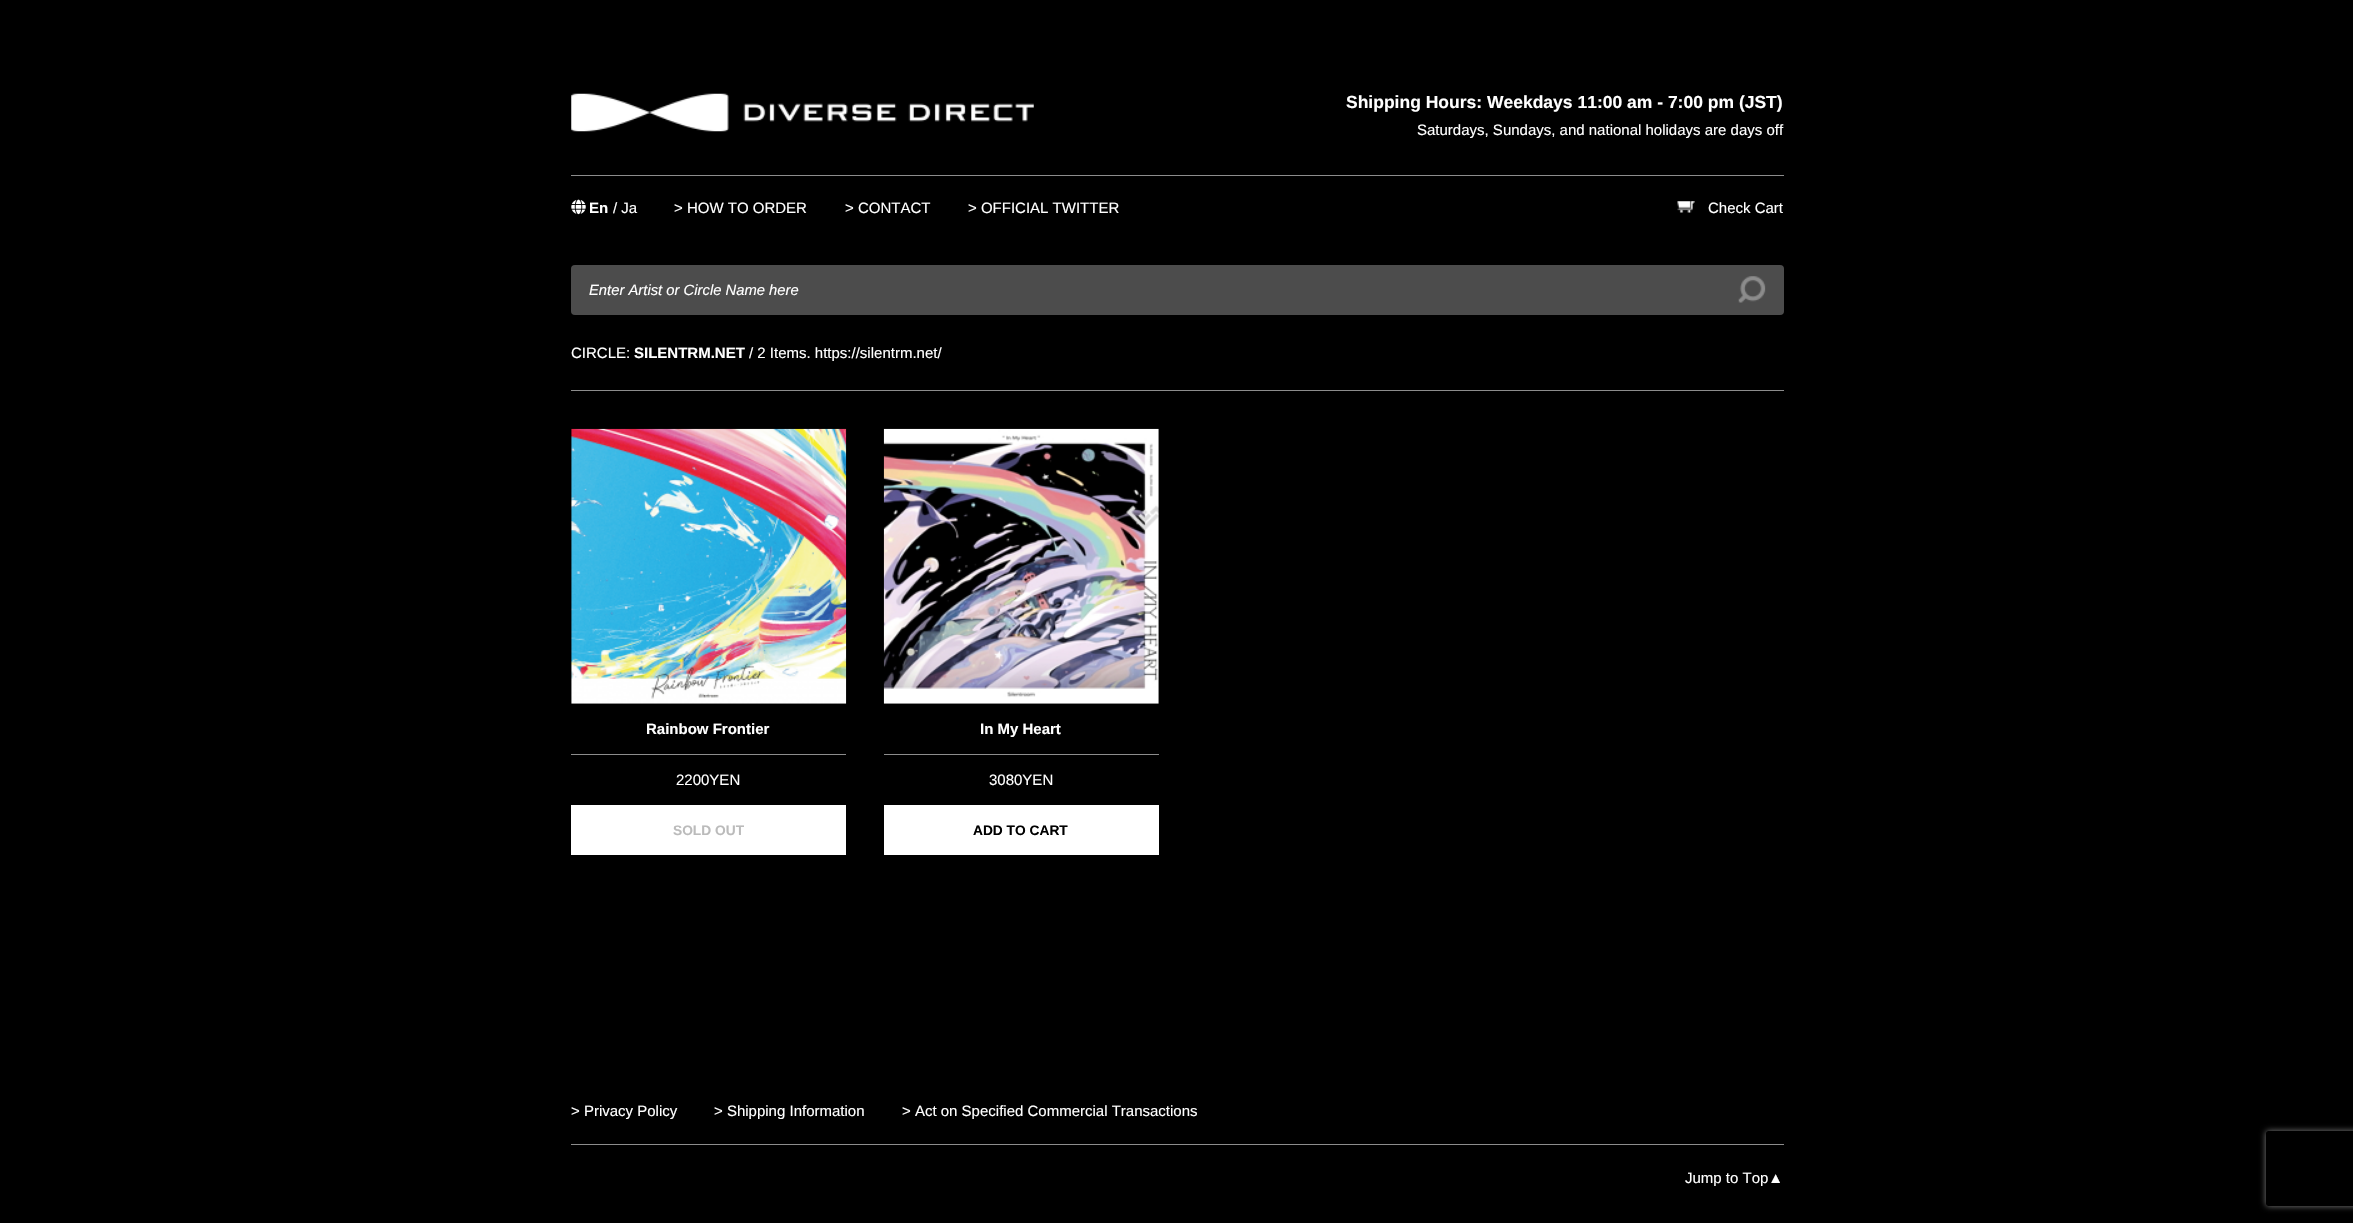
void draw(SkCanvas* canvas) {
    SkPaint paint;
    paint.setAntiAlias(true);
    canvas->clear(0xFF000000);
    canvas->drawImageRect(SkImages::DeferredFromEncodedData(SkData::MakeFromFileName("img1.png")), SkRect::MakeXYWH(571, 93, 463, 39), SkSamplingOptions());
    SkFont font1(fontMgr->matchFamilyStyle("Liberation Sans", SkFontStyle::Bold()), 17.5f);
    font1.setSubpixel(true);
    paint.setColor(0xFFFFFFFF);
    canvas->drawString("Shipping Hours: Weekdays 11:00 am - 7:00 pm (JST)", 1346, 108, font1, paint);
    SkFont font2(fontMgr->matchFamilyStyle("Liberation Sans", SkFontStyle::Normal()), 15);
    font2.setSubpixel(true);
    canvas->drawString("Saturdays, Sundays, and national holidays are days off", 1417, 135, font2, paint);
    paint.setColor(0xFF8C8C8C);
    canvas->drawRect(SkRect::MakeXYWH(571, 175, 1213, 1), paint);
    canvas->drawImageRect(SkImages::DeferredFromEncodedData(SkData::MakeFromFileName("img2.png")), SkRect::MakeXYWH(571, 199, 15, 16), SkSamplingOptions());
    SkFont font3(fontMgr->matchFamilyStyle("Liberation Sans", SkFontStyle::Bold()), 15);
    font3.setSubpixel(true);
    paint.setColor(0xFFFFFFFF);
    canvas->drawString("En", 589, 213, font3, paint);
    canvas->drawString("/ Ja", 613, 213, font2, paint);
    canvas->drawString("> HOW TO ORDER", 674, 213, font2, paint);
    canvas->drawString("> CONTACT", 845, 213, font2, paint);
    canvas->drawString("> OFFICIAL TWITTER", 968, 213, font2, paint);
    canvas->drawImageRect(SkImages::DeferredFromEncodedData(SkData::MakeFromFileName("img3.png")), SkRect::MakeXYWH(1677, 201, 18, 12), SkSamplingOptions());
    canvas->drawString("Check Cart", 1708, 213, font2, paint);
    paint.setColor(0xFF4C4C4C);
    canvas->drawRoundRect(SkRect::MakeXYWH(571, 265, 1213, 50), 4, 4, paint);
    canvas->drawImageRect(SkImages::DeferredFromEncodedData(SkData::MakeFromFileName("img4.png")), SkRect::MakeXYWH(1738, 276, 28, 27), SkSamplingOptions());
    SkFont font4(fontMgr->matchFamilyStyle("Liberation Sans", SkFontStyle::Italic()), 14.8f);
    font4.setSubpixel(true);
    paint.setColor(0xFFFFFFFF);
    canvas->drawString("Enter Artist or Circle Name here", 589, 295, font4, paint);
    paint.setColor(0xFF8C8C8C);
    canvas->drawRect(SkRect::MakeXYWH(571, 390, 1213, 1), paint);
    paint.setColor(0xFFFFFFFF);
    canvas->drawString("CIRCLE:", 571, 358, font2, paint);
    canvas->drawString("SILENTRM.NET", 634, 358, font3, paint);
    canvas->drawString("/ 2 Items. https://silentrm.net/", 749, 358, font2, paint);
    canvas->drawImageRect(SkImages::DeferredFromEncodedData(SkData::MakeFromFileName("img5.png")), SkRect::MakeXYWH(571, 428, 276, 276), SkSamplingOptions());
    paint.setColor(0xFF8C8C8C);
    canvas->drawRect(SkRect::MakeXYWH(571, 754, 275, 1), paint);
    paint.setColor(0xFFFFFFFF);
    canvas->drawString("Rainbow Frontier", 646, 734, font3, paint);
    canvas->drawString("2200YEN", 676, 785, font2, paint);
    canvas->drawRect(SkRect::MakeXYWH(571, 805, 275, 50), paint);
    SkFont font5(fontMgr->matchFamilyStyle("Liberation Sans", SkFontStyle::Bold()), 13.75f);
    font5.setSubpixel(true);
    paint.setColor(0xFFBBBBBB);
    canvas->drawString("SOLD OUT", 673, 835, font5, paint);
    canvas->drawImageRect(SkImages::DeferredFromEncodedData(SkData::MakeFromFileName("img6.png")), SkRect::MakeXYWH(883, 428, 276, 276), SkSamplingOptions());
    paint.setColor(0xFF8C8C8C);
    canvas->drawRect(SkRect::MakeXYWH(884, 754, 275, 1), paint);
    paint.setColor(0xFFFFFFFF);
    canvas->drawString("In My Heart", 980, 734, font3, paint);
    canvas->drawString("3080YEN", 989, 785, font2, paint);
    canvas->drawRect(SkRect::MakeXYWH(884, 805, 275, 50), paint);
    paint.setColor(0xFF000000);
    canvas->drawString("ADD TO CART", 973, 835, font5, paint);
    paint.setColor(0xFF8C8C8C);
    canvas->drawRect(SkRect::MakeXYWH(571, 1144, 1213, 1), paint);
    paint.setColor(0xFFFFFFFF);
    canvas->drawString("> Privacy Policy", 571, 1116, font2, paint);
    canvas->drawString("> Shipping Information", 714, 1116, font2, paint);
    canvas->drawString("> Act on Specified Commercial Transactions", 902, 1116, font2, paint);
    canvas->drawString("Jump to Top▲", 1685, 1183, font2, paint);
    canvas->save();
    canvas->clipPath(SkPathBuilder(SkPathFillType::kEvenOdd).moveTo(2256, 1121).lineTo(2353, 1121).lineTo(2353, 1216).lineTo(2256, 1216).close().moveTo(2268.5f, 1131).lineTo(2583.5f, 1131).cubicTo(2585, 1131, 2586, 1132, 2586, 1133.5f).lineTo(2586, 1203.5f).cubicTo(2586, 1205, 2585, 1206, 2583.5f, 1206).lineTo(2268.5f, 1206).cubicTo(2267, 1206, 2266, 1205, 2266, 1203.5f).lineTo(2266, 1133.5f).cubicTo(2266, 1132, 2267, 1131, 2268.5f, 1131).close().detach(), true);
    paint.setColor(0xFF808080);
    paint.setMaskFilter(SkMaskFilter::MakeBlur(kNormal_SkBlurStyle, 3));
    canvas->drawRoundRect(SkRect::MakeXYWH(2266, 1131, 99, 75), 2.5f, 2.5f, paint);
    paint.setMaskFilter(nullptr);
    canvas->restore();
}
